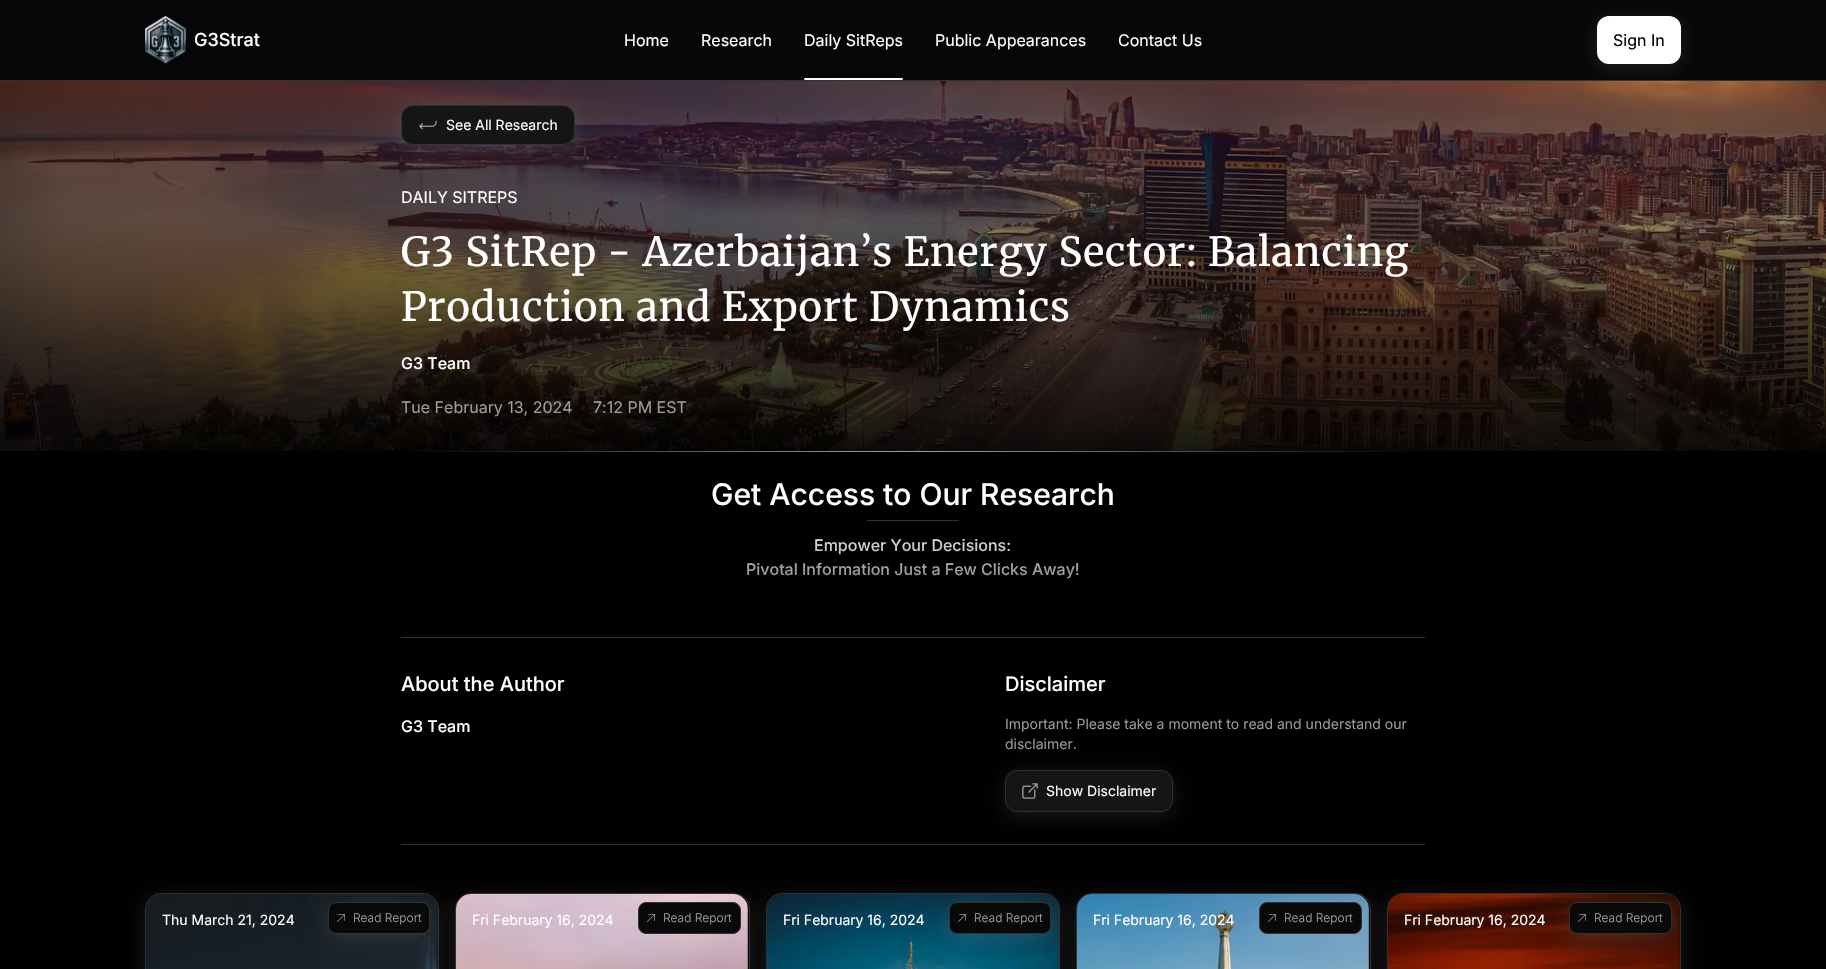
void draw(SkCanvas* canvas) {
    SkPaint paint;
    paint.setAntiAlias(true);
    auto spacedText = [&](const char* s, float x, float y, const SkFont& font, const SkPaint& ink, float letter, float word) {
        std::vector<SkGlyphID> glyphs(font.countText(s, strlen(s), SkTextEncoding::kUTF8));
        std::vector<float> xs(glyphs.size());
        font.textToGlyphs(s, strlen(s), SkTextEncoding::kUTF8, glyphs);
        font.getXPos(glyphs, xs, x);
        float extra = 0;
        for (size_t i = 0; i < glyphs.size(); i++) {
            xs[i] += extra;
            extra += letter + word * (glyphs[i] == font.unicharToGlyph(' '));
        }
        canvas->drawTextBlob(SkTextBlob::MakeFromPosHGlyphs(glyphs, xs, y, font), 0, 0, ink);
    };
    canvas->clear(0xFF000000);
    canvas->drawImageRect(SkImages::DeferredFromEncodedData(SkData::MakeFromFileName("img2.png")), SkRect::MakeXYWH(0, 81, 1826, 370), SkSamplingOptions());
    paint.setColor(0x1AFFFFFF);
    paint.setMaskFilter(SkMaskFilter::MakeBlur(kNormal_SkBlurStyle, 10));
    canvas->drawRoundRect(SkRect::MakeXYWH(401, 109, 174, 40), 12, 12, paint);
    paint.setMaskFilter(nullptr);
    paint.setColor(0xFF060608);
    canvas->drawRect(SkRect::MakeXYWH(0, 0, 1826, 80), paint);
    paint.setColor(0xFF323232);
    canvas->drawRect(SkRect::MakeXYWH(0, 80, 1826, 1), paint);
    canvas->drawImageRect(SkImages::DeferredFromEncodedData(SkData::MakeFromFileName("img1.png")), SkRect::MakeXYWH(145, 16, 41, 48), SkSamplingOptions());
    SkFont font1(fontMgr->matchFamilyStyle("Inter", SkFontStyle(500, SkFontStyle::kNormal_Width, SkFontStyle::kUpright_Slant)), 18);
    font1.setSubpixel(true);
    paint.setColor(0xFFFFFFFF);
    canvas->drawString("G3Strat", 194, 46, font1, paint);
    SkFont font2(fontMgr->matchFamilyStyle("Inter", SkFontStyle::Normal()), 16);
    font2.setSubpixel(true);
    canvas->drawString("Home", 624, 46, font2, paint);
    canvas->drawString("Research", 701, 46, font2, paint);
    canvas->drawString("Daily SitReps", 804, 46, font2, paint);
    paint.setColor(0xFFFAFAFA);
    canvas->drawRoundRect(SkRect::MakeXYWH(804, 78, 99, 2), 1, 1, paint);
    paint.setColor(0xFFFFFFFF);
    canvas->drawString("Public Appearances", 935, 46, font2, paint);
    canvas->drawString("Contact Us", 1118, 46, font2, paint);
    paint.setColor(0x1AFFFFFF);
    paint.setMaskFilter(SkMaskFilter::MakeBlur(kNormal_SkBlurStyle, 10));
    canvas->drawRoundRect(SkRect::MakeXYWH(1597, 20, 84, 48), 12, 12, paint);
    paint.setMaskFilter(nullptr);
    paint.setColor(0xFFFFFFFF);
    canvas->drawRoundRect(SkRect::MakeXYWH(1597, 16, 84, 48), 12, 12, paint);
    paint.setColor(0xFF000000);
    canvas->drawString("Sign In", 1613, 46, font2, paint);
    paint.setColor(0xFF151515);
    canvas->drawRoundRect(SkRect::MakeXYWH(401.5f, 105.5f, 173, 39), 11.5f, 11.5f, paint);
    paint.setStyle(SkPaint::kStroke_Style);
    paint.setStrokeWidth(1);
    paint.setColor(0xFF323232);
    canvas->drawRoundRect(SkRect::MakeXYWH(401.5f, 105.5f, 173, 39), 11.5f, 11.5f, paint);
    canvas->drawImageRect(SkImages::DeferredFromEncodedData(SkData::MakeFromFileName("img3.png")), SkRect::MakeXYWH(419, 120, 18, 10), SkSamplingOptions());
    SkFont font3(fontMgr->matchFamilyStyle("Inter", SkFontStyle::Normal()), 14);
    font3.setSubpixel(true);
    paint.setStyle(SkPaint::kFill_Style);
    paint.setColor(0xFFFFFFFF);
    canvas->drawString("See All Research", 446, 130, font3, paint);
    canvas->drawString("DAILY SITREPS", 401, 203, font2, paint);
    SkFont font4(fontMgr->matchFamilyStyle("Merriweather", SkFontStyle::Normal()), 40);
    font4.setSubpixel(true);
    spacedText("G3 SitRep - Azerbaijan’s Energy Sector: Balancing", 401, 266, font4, paint, 1, 0);
    spacedText("Production and Export Dynamics", 401, 321, font4, paint, 1, 0);
    SkFont font5(fontMgr->matchFamilyStyle("Inter", SkFontStyle(500, SkFontStyle::kNormal_Width, SkFontStyle::kUpright_Slant)), 16);
    font5.setSubpixel(true);
    canvas->drawString("G3 Team", 401, 369, font5, paint);
    paint.setColor(0xFF9F9D9C);
    canvas->drawString("Tue February 13, 2024", 401, 413, font2, paint);
    paint.setColor(0x0DFFFFFF);
    canvas->drawRect(SkRect::MakeXYWH(581, 405, 4, 4), paint);
    paint.setColor(0xFF9F9D9C);
    canvas->drawString("7:12 PM EST", 593, 413, font2, paint);
    {
        const SkColor colors[] = {0xFF000000, 0xFF94A3B8, 0xFF000000};
        const float stops[] = {0, 0.5f, 1};
        const SkPoint ends[] = {{401, 452}, {1425, 451}};
        paint.setShader(SkGradientShader::MakeLinear(ends, colors, stops, 3, SkTileMode::kClamp));
        paint.setAlpha(255);
    }
    canvas->drawRect(SkRect::MakeXYWH(401, 451, 1024, 1), paint);
    SkFont font6(fontMgr->matchFamilyStyle("Inter", SkFontStyle(500, SkFontStyle::kNormal_Width, SkFontStyle::kUpright_Slant)), 30);
    font6.setSubpixel(true);
    paint.setShader(nullptr);
    paint.setColor(0xFFFFFFFF);
    canvas->drawString("Get Access to Our Research", 711, 505, font6, paint);
    paint.setColor(0xFF323232);
    canvas->drawRect(SkRect::MakeXYWH(867, 520, 92, 1), paint);
    {
        const SkColor colors[] = {0xFFE8E8E8, 0xFF888888};
        const float stops[] = {0, 1};
        const SkPoint ends[] = {{913, 533}, {913, 581}};
        paint.setShader(SkGradientShader::MakeLinear(ends, colors, stops, 2, SkTileMode::kClamp));
        paint.setAlpha(255);
    }
    canvas->drawString("Empower Your Decisions:", 814, 551, font5, paint);
    canvas->drawString("Pivotal Information Just a Few Clicks Away!", 746, 575, font5, paint);
    paint.setShader(nullptr);
    paint.setColor(0xFF323232);
    canvas->drawRect(SkRect::MakeXYWH(401, 637, 1024, 1), paint);
    canvas->drawRect(SkRect::MakeXYWH(401, 844, 1024, 1), paint);
    SkFont font7(fontMgr->matchFamilyStyle("Inter", SkFontStyle(500, SkFontStyle::kNormal_Width, SkFontStyle::kUpright_Slant)), 20);
    font7.setSubpixel(true);
    paint.setColor(0xFFFFFFFF);
    canvas->drawString("About the Author", 401, 691, font7, paint);
    canvas->drawString("G3 Team", 401, 732, font5, paint);
    canvas->drawString("Disclaimer", 1005, 691, font7, paint);
    paint.setColor(0xFF999999);
    canvas->drawString("Important: Please take a moment to read and understand our", 1005, 729, font3, paint);
    canvas->drawString("disclaimer.", 1005, 749, font3, paint);
    paint.setColor(0x1AFFFFFF);
    paint.setMaskFilter(SkMaskFilter::MakeBlur(kNormal_SkBlurStyle, 10));
    canvas->drawRoundRect(SkRect::MakeXYWH(1005, 774, 168, 42), 12, 12, paint);
    paint.setMaskFilter(nullptr);
    paint.setColor(0xFF151515);
    canvas->drawRoundRect(SkRect::MakeXYWH(1005.5f, 770.5f, 167, 41), 11.5f, 11.5f, paint);
    paint.setStyle(SkPaint::kStroke_Style);
    paint.setColor(0xFF323232);
    canvas->drawRoundRect(SkRect::MakeXYWH(1005.5f, 770.5f, 167, 41), 11.5f, 11.5f, paint);
    canvas->drawImageRect(SkImages::DeferredFromEncodedData(SkData::MakeFromFileName("img4.png")), SkRect::MakeXYWH(1022, 783, 16, 16), SkSamplingOptions());
    paint.setStyle(SkPaint::kFill_Style);
    paint.setColor(0xFFFFFFFF);
    canvas->drawString("Show Disclaimer", 1046, 796, font3, paint);
    paint.setColor(0x1AFFFFFF);
    paint.setMaskFilter(SkMaskFilter::MakeBlur(kNormal_SkBlurStyle, 10));
    canvas->drawRoundRect(SkRect::MakeXYWH(145, 897, 294, 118), 16, 16, paint);
    paint.setMaskFilter(nullptr);
    paint.setColor(0xFF000000);
    canvas->drawRoundRect(SkRect::MakeXYWH(145.5f, 893.5f, 293, 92), 15.5f, 15.5f, paint);
    paint.setStyle(SkPaint::kStroke_Style);
    paint.setColor(0xFF323232);
    canvas->drawRoundRect(SkRect::MakeXYWH(145.5f, 893.5f, 293, 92), 15.5f, 15.5f, paint);
    canvas->drawImageRect(SkImages::DeferredFromEncodedData(SkData::MakeFromFileName("img5.png")), SkRect::MakeXYWH(146, 894, 292, 75), SkSamplingOptions());
    paint.setStyle(SkPaint::kFill_Style);
    paint.setColor(0xFFFFFFFF);
    canvas->drawString("Thu March 21, 2024", 162, 925, font3, paint);
    canvas->save();
    canvas->clipPath(SkPathBuilder().moveTo(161, 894).lineTo(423, 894).cubicTo(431.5f, 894, 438, 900.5f, 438, 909).lineTo(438, 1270).cubicTo(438, 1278.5f, 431.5f, 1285, 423, 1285).lineTo(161, 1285).cubicTo(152.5f, 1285, 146, 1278.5f, 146, 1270).lineTo(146, 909).cubicTo(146, 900.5f, 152.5f, 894, 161, 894).close().detach(), true);
    paint.setColor(0x1AFFFFFF);
    paint.setMaskFilter(SkMaskFilter::MakeBlur(kNormal_SkBlurStyle, 10));
    canvas->drawRoundRect(SkRect::MakeXYWH(328, 906, 102, 32), 8, 8, paint);
    paint.setMaskFilter(nullptr);
    canvas->restore();
    paint.setColor(0xFF090909);
    canvas->drawRoundRect(SkRect::MakeXYWH(328.5f, 902.5f, 101, 31), 7.5f, 7.5f, paint);
    paint.setStyle(SkPaint::kStroke_Style);
    paint.setColor(0xFF323232);
    canvas->drawRoundRect(SkRect::MakeXYWH(328.5f, 902.5f, 101, 31), 7.5f, 7.5f, paint);
    canvas->drawImageRect(SkImages::DeferredFromEncodedData(SkData::MakeFromFileName("img6.png")), SkRect::MakeXYWH(337, 914, 8, 8), SkSamplingOptions());
    SkFont font8(fontMgr->matchFamilyStyle("Inter", SkFontStyle(300, SkFontStyle::kNormal_Width, SkFontStyle::kUpright_Slant)), 12);
    font8.setSubpixel(true);
    paint.setStyle(SkPaint::kFill_Style);
    paint.setColor(0xFFA3A3A3);
    canvas->drawString("Read Report", 353, 922, font8, paint);
    paint.setColor(0x1AFFFFFF);
    paint.setMaskFilter(SkMaskFilter::MakeBlur(kNormal_SkBlurStyle, 10));
    canvas->drawRoundRect(SkRect::MakeXYWH(455, 897, 295, 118), 16, 16, paint);
    paint.setMaskFilter(nullptr);
    paint.setColor(0xFF000000);
    canvas->drawRoundRect(SkRect::MakeXYWH(455.5f, 893.5f, 294, 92), 15.5f, 15.5f, paint);
    paint.setStyle(SkPaint::kStroke_Style);
    paint.setColor(0xFF323232);
    canvas->drawRoundRect(SkRect::MakeXYWH(455.5f, 893.5f, 294, 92), 15.5f, 15.5f, paint);
    canvas->drawImageRect(SkImages::DeferredFromEncodedData(SkData::MakeFromFileName("img7.png")), SkRect::MakeXYWH(456, 894, 292, 75), SkSamplingOptions());
    paint.setStyle(SkPaint::kFill_Style);
    paint.setColor(0xFFFFFFFF);
    canvas->drawString("Fri February 16, 2024", 472, 925, font3, paint);
    paint.setColor(0xFF090909);
    canvas->drawRoundRect(SkRect::MakeXYWH(638.5f, 902.5f, 102, 31), 7.5f, 7.5f, paint);
    paint.setStyle(SkPaint::kStroke_Style);
    paint.setColor(0xFF323232);
    canvas->drawRoundRect(SkRect::MakeXYWH(638.5f, 902.5f, 102, 31), 7.5f, 7.5f, paint);
    canvas->drawImageRect(SkImages::DeferredFromEncodedData(SkData::MakeFromFileName("img6.png")), SkRect::MakeXYWH(647, 914, 8, 8), SkSamplingOptions());
    paint.setStyle(SkPaint::kFill_Style);
    paint.setColor(0xFFA3A3A3);
    canvas->drawString("Read Report", 663, 922, font8, paint);
    paint.setColor(0x1AFFFFFF);
    paint.setMaskFilter(SkMaskFilter::MakeBlur(kNormal_SkBlurStyle, 10));
    canvas->drawRoundRect(SkRect::MakeXYWH(766, 897, 294, 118), 16, 16, paint);
    paint.setMaskFilter(nullptr);
    paint.setStyle(SkPaint::kStroke_Style);
    paint.setColor(0xFF323232);
    canvas->drawRoundRect(SkRect::MakeXYWH(766.5f, 893.5f, 293, 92), 15.5f, 15.5f, paint);
    canvas->drawImageRect(SkImages::DeferredFromEncodedData(SkData::MakeFromFileName("img8.png")), SkRect::MakeXYWH(767, 894, 292, 75), SkSamplingOptions());
    paint.setStyle(SkPaint::kFill_Style);
    paint.setColor(0xFFFFFFFF);
    canvas->drawString("Fri February 16, 2024", 783, 925, font3, paint);
    canvas->save();
    canvas->clipPath(SkPathBuilder().moveTo(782, 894).lineTo(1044, 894).cubicTo(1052.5f, 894, 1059, 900.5f, 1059, 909).lineTo(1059, 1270).cubicTo(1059, 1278.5f, 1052.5f, 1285, 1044, 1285).lineTo(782, 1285).cubicTo(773.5f, 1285, 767, 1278.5f, 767, 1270).lineTo(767, 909).cubicTo(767, 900.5f, 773.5f, 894, 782, 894).close().detach(), true);
    paint.setColor(0x1AFFFFFF);
    paint.setMaskFilter(SkMaskFilter::MakeBlur(kNormal_SkBlurStyle, 10));
    canvas->drawRoundRect(SkRect::MakeXYWH(949, 906, 102, 32), 8, 8, paint);
    paint.setMaskFilter(nullptr);
    canvas->restore();
    paint.setColor(0xFF090909);
    canvas->drawRoundRect(SkRect::MakeXYWH(949.5f, 902.5f, 101, 31), 7.5f, 7.5f, paint);
    paint.setStyle(SkPaint::kStroke_Style);
    paint.setColor(0xFF323232);
    canvas->drawRoundRect(SkRect::MakeXYWH(949.5f, 902.5f, 101, 31), 7.5f, 7.5f, paint);
    canvas->drawImageRect(SkImages::DeferredFromEncodedData(SkData::MakeFromFileName("img6.png")), SkRect::MakeXYWH(958, 914, 8, 8), SkSamplingOptions());
    paint.setStyle(SkPaint::kFill_Style);
    paint.setColor(0xFFA3A3A3);
    canvas->drawString("Read Report", 974, 922, font8, paint);
    paint.setColor(0x1AFFFFFF);
    paint.setMaskFilter(SkMaskFilter::MakeBlur(kNormal_SkBlurStyle, 10));
    canvas->drawRoundRect(SkRect::MakeXYWH(1076, 897, 295, 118), 16, 16, paint);
    paint.setMaskFilter(nullptr);
    paint.setColor(0xFF000000);
    canvas->drawRoundRect(SkRect::MakeXYWH(1076.5f, 893.5f, 294, 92), 15.5f, 15.5f, paint);
    paint.setStyle(SkPaint::kStroke_Style);
    paint.setColor(0xFF323232);
    canvas->drawRoundRect(SkRect::MakeXYWH(1076.5f, 893.5f, 294, 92), 15.5f, 15.5f, paint);
    canvas->drawImageRect(SkImages::DeferredFromEncodedData(SkData::MakeFromFileName("img9.png")), SkRect::MakeXYWH(1077, 894, 292, 75), SkSamplingOptions());
    paint.setStyle(SkPaint::kFill_Style);
    paint.setColor(0xFFFFFFFF);
    canvas->drawString("Fri February 16, 2024", 1093, 925, font3, paint);
    canvas->save();
    canvas->clipPath(SkPathBuilder().moveTo(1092, 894).lineTo(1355, 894).cubicTo(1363.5f, 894, 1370, 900.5f, 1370, 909).lineTo(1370, 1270).cubicTo(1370, 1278.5f, 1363.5f, 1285, 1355, 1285).lineTo(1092, 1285).cubicTo(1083.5f, 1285, 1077, 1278.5f, 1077, 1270).lineTo(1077, 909).cubicTo(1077, 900.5f, 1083.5f, 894, 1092, 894).close().detach(), true);
    paint.setColor(0x1AFFFFFF);
    paint.setMaskFilter(SkMaskFilter::MakeBlur(kNormal_SkBlurStyle, 10));
    canvas->drawRoundRect(SkRect::MakeXYWH(1259, 906, 103, 32), 8, 8, paint);
    paint.setMaskFilter(nullptr);
    canvas->restore();
    paint.setColor(0xFF090909);
    canvas->drawRoundRect(SkRect::MakeXYWH(1259.5f, 902.5f, 102, 31), 7.5f, 7.5f, paint);
    paint.setStyle(SkPaint::kStroke_Style);
    paint.setColor(0xFF323232);
    canvas->drawRoundRect(SkRect::MakeXYWH(1259.5f, 902.5f, 102, 31), 7.5f, 7.5f, paint);
    canvas->drawImageRect(SkImages::DeferredFromEncodedData(SkData::MakeFromFileName("img6.png")), SkRect::MakeXYWH(1268, 914, 8, 8), SkSamplingOptions());
    paint.setStyle(SkPaint::kFill_Style);
    paint.setColor(0xFFA3A3A3);
    canvas->drawString("Read Report", 1284, 922, font8, paint);
    paint.setColor(0x1AFFFFFF);
    paint.setMaskFilter(SkMaskFilter::MakeBlur(kNormal_SkBlurStyle, 10));
    canvas->drawRoundRect(SkRect::MakeXYWH(1387, 897, 294, 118), 16, 16, paint);
    paint.setMaskFilter(nullptr);
    paint.setColor(0xFF000000);
    canvas->drawRoundRect(SkRect::MakeXYWH(1387.5f, 893.5f, 293, 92), 15.5f, 15.5f, paint);
    paint.setStyle(SkPaint::kStroke_Style);
    paint.setColor(0xFF323232);
    canvas->drawRoundRect(SkRect::MakeXYWH(1387.5f, 893.5f, 293, 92), 15.5f, 15.5f, paint);
    canvas->drawImageRect(SkImages::DeferredFromEncodedData(SkData::MakeFromFileName("img10.png")), SkRect::MakeXYWH(1388, 894, 292, 75), SkSamplingOptions());
    paint.setStyle(SkPaint::kFill_Style);
    paint.setColor(0xFFFFFFFF);
    canvas->drawString("Fri February 16, 2024", 1404, 925, font3, paint);
    canvas->save();
    canvas->clipPath(SkPathBuilder().moveTo(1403, 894).lineTo(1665, 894).cubicTo(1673.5f, 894, 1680, 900.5f, 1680, 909).lineTo(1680, 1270).cubicTo(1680, 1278.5f, 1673.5f, 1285, 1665, 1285).lineTo(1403, 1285).cubicTo(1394.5f, 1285, 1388, 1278.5f, 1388, 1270).lineTo(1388, 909).cubicTo(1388, 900.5f, 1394.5f, 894, 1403, 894).close().detach(), true);
    paint.setColor(0x1AFFFFFF);
    paint.setMaskFilter(SkMaskFilter::MakeBlur(kNormal_SkBlurStyle, 10));
    canvas->drawRoundRect(SkRect::MakeXYWH(1569, 906, 103, 32), 8, 8, paint);
    paint.setMaskFilter(nullptr);
    canvas->restore();
    paint.setColor(0xFF090909);
    canvas->drawRoundRect(SkRect::MakeXYWH(1569.5f, 902.5f, 102, 31), 7.5f, 7.5f, paint);
    paint.setStyle(SkPaint::kStroke_Style);
    paint.setColor(0xFF323232);
    canvas->drawRoundRect(SkRect::MakeXYWH(1569.5f, 902.5f, 102, 31), 7.5f, 7.5f, paint);
    canvas->drawImageRect(SkImages::DeferredFromEncodedData(SkData::MakeFromFileName("img6.png")), SkRect::MakeXYWH(1578, 914, 8, 8), SkSamplingOptions());
    paint.setStyle(SkPaint::kFill_Style);
    paint.setColor(0xFFA3A3A3);
    canvas->drawString("Read Report", 1594, 922, font8, paint);
}
